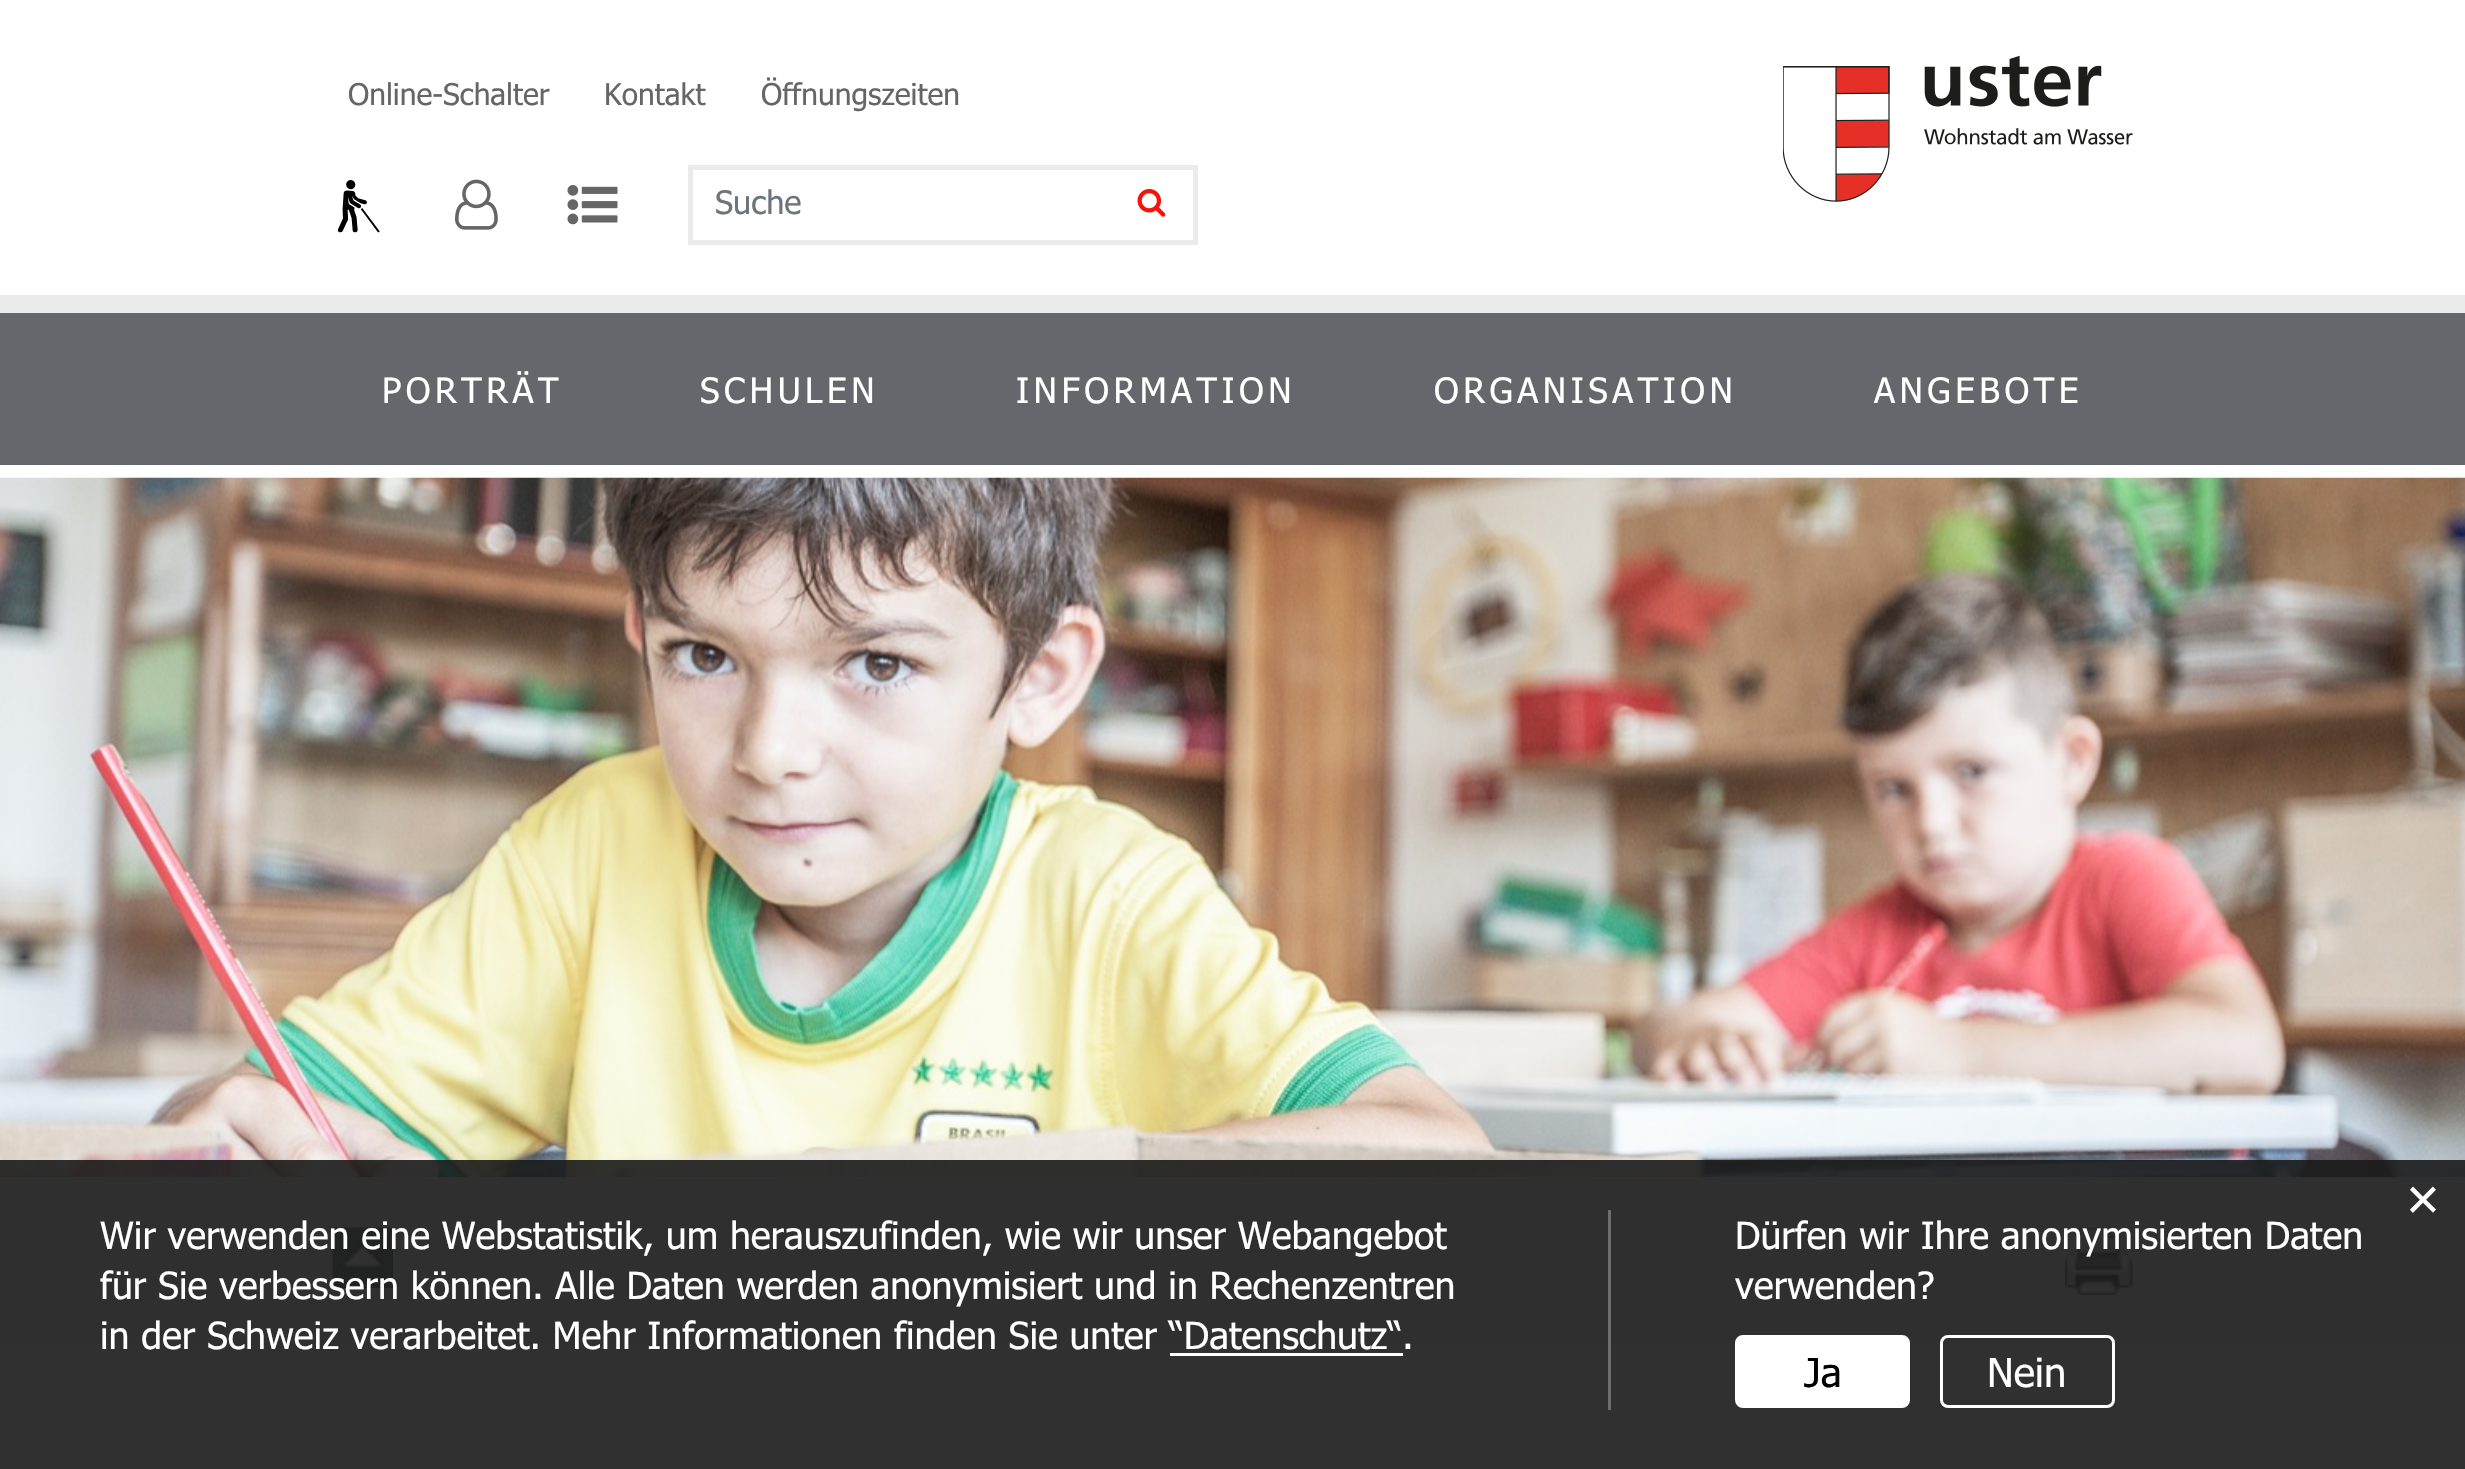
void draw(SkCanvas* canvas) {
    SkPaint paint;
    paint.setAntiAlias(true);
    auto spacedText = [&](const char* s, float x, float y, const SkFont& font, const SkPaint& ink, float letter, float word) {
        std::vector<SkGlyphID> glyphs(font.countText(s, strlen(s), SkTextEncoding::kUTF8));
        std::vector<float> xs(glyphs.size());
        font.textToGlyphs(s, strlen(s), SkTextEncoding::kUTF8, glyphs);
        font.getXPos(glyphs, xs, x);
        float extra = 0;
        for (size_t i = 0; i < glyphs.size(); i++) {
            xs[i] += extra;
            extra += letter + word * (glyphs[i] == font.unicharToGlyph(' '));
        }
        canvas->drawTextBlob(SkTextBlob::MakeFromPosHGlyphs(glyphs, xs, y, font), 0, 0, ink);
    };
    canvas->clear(0xFFFFFFFF);
    paint.setColor(0xFFEBEBEB);
    canvas->drawRect(SkRect::MakeXYWH(0, 295, 2465, 18), paint);
    SkFont font1(fontMgr->matchFamilyStyle("Tahoma", SkFontStyle::Normal()), 30);
    font1.setSubpixel(true);
    paint.setColor(0xFF666666);
    canvas->drawString("Online-Schalter", 348, 105, font1, paint);
    canvas->drawString("Kontakt", 604, 105, font1, paint);
    canvas->drawString("Öffnungszeiten", 761, 105, font1, paint);
    canvas->drawImageRect(SkImages::DeferredFromEncodedData(SkData::MakeFromFileName("img1.png")), SkRect::MakeXYWH(337, 180, 43, 53), SkSamplingOptions());
    canvas->drawImageRect(SkImages::DeferredFromEncodedData(SkData::MakeFromFileName("img2.png")), SkRect::MakeXYWH(455, 179, 43, 51), SkSamplingOptions());
    canvas->drawImageRect(SkImages::DeferredFromEncodedData(SkData::MakeFromFileName("img3.png")), SkRect::MakeXYWH(567, 185, 51, 40), SkSamplingOptions());
    paint.setStyle(SkPaint::kStroke_Style);
    paint.setStrokeWidth(5);
    paint.setColor(0xFFEBEBEB);
    canvas->drawRect(SkRect::MakeXYWH(690.5f, 167.5f, 505, 75), paint);
    SkFont font2(fontMgr->matchFamilyStyle("Tahoma", SkFontStyle::Normal()), 32.5f);
    font2.setSubpixel(true);
    paint.setStyle(SkPaint::kFill_Style);
    paint.setColor(0xFF6C757D);
    canvas->drawString("Suche", 715, 214, font2, paint);
    canvas->drawImageRect(SkImages::DeferredFromEncodedData(SkData::MakeFromFileName("img4.png")), SkRect::MakeXYWH(1137, 188, 29, 29), SkSamplingOptions());
    canvas->drawImageRect(SkImages::DeferredFromEncodedData(SkData::MakeFromFileName("img5.png")), SkRect::MakeXYWH(1783, 55, 350, 147), SkSamplingOptions());
    paint.setColor(0xFF65676D);
    canvas->drawRect(SkRect::MakeXYWH(0, 313, 2465, 152), paint);
    SkFont font3(fontMgr->matchFamilyStyle("Tahoma", SkFontStyle::Normal()), 35);
    font3.setSubpixel(true);
    paint.setColor(0xFFFFFFFF);
    spacedText("PORTRÄT", 382, 403, font3, paint, 4.5f, 0);
    spacedText("SCHULEN", 700, 403, font3, paint, 4.5f, 0);
    spacedText("INFORMATION", 1016, 403, font3, paint, 4.5f, 0);
    spacedText("ORGANISATION", 1434, 403, font3, paint, 4.5f, 0);
    spacedText("ANGEBOTE", 1874, 403, font3, paint, 4.5f, 0);
    canvas->drawImageRect(SkImages::DeferredFromEncodedData(SkData::MakeFromFileName("img6.png")), SkRect::MakeXYWH(0, 477, 2465, 701), SkSamplingOptions());
    paint.setColor(0xFFF1F5F6);
    canvas->drawRect(SkRect::MakeXYWH(0, 1178, 2465, 167), paint);
    paint.setColor(0xFF65676D);
    canvas->drawRect(SkRect::MakeXYWH(333, 1228, 60, 60), paint);
    canvas->drawImageRect(SkImages::DeferredFromEncodedData(SkData::MakeFromFileName("img7.png")), SkRect::MakeXYWH(332, 1227, 61, 61), SkSamplingOptions());
    canvas->drawImageRect(SkImages::DeferredFromEncodedData(SkData::MakeFromFileName("img8.png")), SkRect::MakeXYWH(2065, 1227, 68, 68), SkSamplingOptions());
    paint.setColor(0xE6191919);
    canvas->drawRect(SkRect::MakeXYWH(0, 1160, 2465, 309), paint);
    SkFont font4(fontMgr->matchFamilyStyle("Liberation Sans", SkFontStyle::Normal()), 58);
    font4.setSubpixel(true);
    paint.setColor(0xFFFFFFFF);
    canvas->drawString("×", 2406, 1219, font4, paint);
    paint.setColor(0xFF6D6D6D);
    canvas->drawRect(SkRect::MakeXYWH(1608, 1210, 3, 200), paint);
    SkFont font5(fontMgr->matchFamilyStyle("Tahoma", SkFontStyle::Normal()), 37.5f);
    font5.setSubpixel(true);
    paint.setColor(0xFFFFFFFF);
    canvas->drawString("Wir verwenden eine Webstatistik, um herauszufinden, wie wir unser Webangebot", 100, 1249, font5, paint);
    canvas->drawString("für Sie verbessern können. Alle Daten werden anonymisiert und in Rechenzentren", 100, 1299, font5, paint);
    canvas->drawString("in der Schweiz verarbeitet. Mehr Informationen finden Sie unter “Datenschutz“.", 100, 1349, font5, paint);
    canvas->drawRect(SkRect::MakeXYWH(1170, 1353, 233, 3), paint);
    canvas->drawString("Dürfen wir Ihre anonymisierten Daten", 1735, 1249, font5, paint);
    canvas->drawString("verwenden?", 1735, 1299, font5, paint);
    canvas->drawRoundRect(SkRect::MakeXYWH(1736.5f, 1336.5f, 172, 70), 6.5f, 6.5f, paint);
    paint.setStyle(SkPaint::kStroke_Style);
    paint.setStrokeWidth(3);
    canvas->drawRoundRect(SkRect::MakeXYWH(1736.5f, 1336.5f, 172, 70), 6.5f, 6.5f, paint);
    SkFont font6(fontMgr->matchFamilyStyle("Tahoma", SkFontStyle::Normal()), 40);
    font6.setSubpixel(true);
    paint.setStyle(SkPaint::kFill_Style);
    paint.setColor(0xFF000000);
    canvas->drawString("Ja", 1804, 1387, font6, paint);
    paint.setStyle(SkPaint::kStroke_Style);
    paint.setColor(0xFFFFFFFF);
    canvas->drawRoundRect(SkRect::MakeXYWH(1941.5f, 1336.5f, 172, 70), 6.5f, 6.5f, paint);
    paint.setStyle(SkPaint::kFill_Style);
    canvas->drawString("Nein", 1987, 1387, font6, paint);
}
